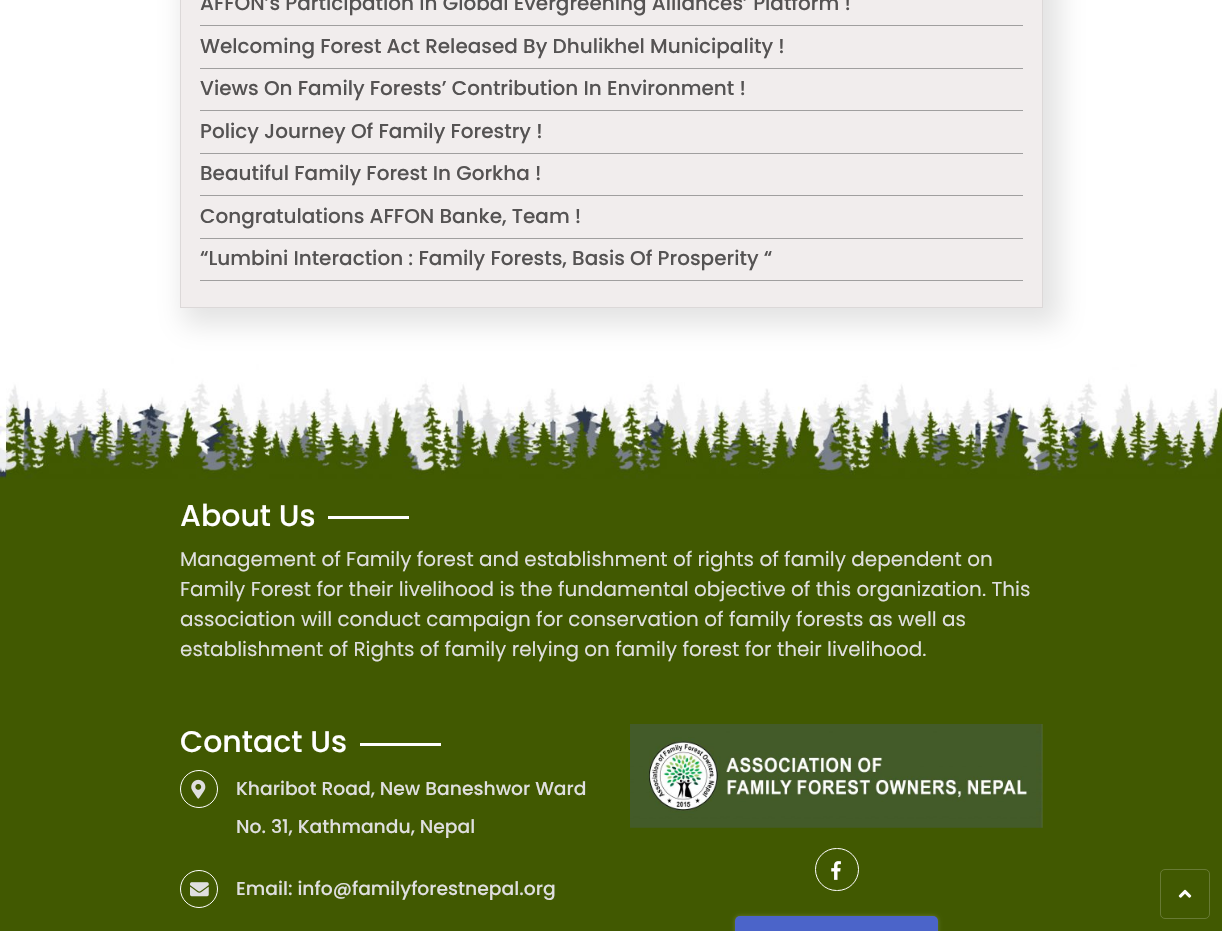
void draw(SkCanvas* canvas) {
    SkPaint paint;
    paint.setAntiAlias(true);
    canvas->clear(0xFFFFFFFF);
    canvas->drawImageRect(SkImages::DeferredFromEncodedData(SkData::MakeFromFileName("img1.png")), SkRect::MakeXYWH(0, 358, 1222, 121), SkSamplingOptions());
    paint.setColor(0x38808080);
    paint.setMaskFilter(SkMaskFilter::MakeBlur(kNormal_SkBlurStyle, 12.5f));
    canvas->drawRect(SkRect::MakeXYWH(183, -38, 877, 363), paint);
    paint.setMaskFilter(nullptr);
    paint.setColor(0xFFF1EDED);
    canvas->drawRect(SkRect::MakeXYWH(180.5f, -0.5f, 862, 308), paint);
    paint.setStyle(SkPaint::kStroke_Style);
    paint.setStrokeWidth(1);
    paint.setColor(0xFFDCD8D8);
    canvas->drawRect(SkRect::MakeXYWH(180.5f, -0.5f, 862, 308), paint);
    paint.setStyle(SkPaint::kFill_Style);
    paint.setColor(0xFFA09F9F);
    canvas->drawRect(SkRect::MakeXYWH(200, 25, 823, 1), paint);
    SkFont font1(fontMgr->matchFamilyStyle("Poppins", SkFontStyle(500, SkFontStyle::kNormal_Width, SkFontStyle::kUpright_Slant)), 20);
    font1.setSubpixel(true);
    paint.setColor(0xFF555353);
    canvas->drawString("AFFON’s Participation In Global Evergreening Alliances’ Platform !", 200, 10, font1, paint);
    paint.setColor(0xFFA09F9F);
    canvas->drawRect(SkRect::MakeXYWH(200, 68, 823, 1), paint);
    paint.setColor(0xFF555353);
    canvas->drawString("Welcoming Forest Act Released By Dhulikhel Municipality !", 200, 53, font1, paint);
    paint.setColor(0xFFA09F9F);
    canvas->drawRect(SkRect::MakeXYWH(200, 110, 823, 1), paint);
    paint.setColor(0xFF555353);
    canvas->drawString("Views On Family Forests’ Contribution In Environment !", 200, 95, font1, paint);
    paint.setColor(0xFFA09F9F);
    canvas->drawRect(SkRect::MakeXYWH(200, 153, 823, 1), paint);
    paint.setColor(0xFF555353);
    canvas->drawString("Policy Journey Of Family Forestry !", 200, 138, font1, paint);
    paint.setColor(0xFFA09F9F);
    canvas->drawRect(SkRect::MakeXYWH(200, 195, 823, 1), paint);
    paint.setColor(0xFF555353);
    canvas->drawString("Beautiful Family Forest In Gorkha !", 200, 180, font1, paint);
    paint.setColor(0xFFA09F9F);
    canvas->drawRect(SkRect::MakeXYWH(200, 238, 823, 1), paint);
    paint.setColor(0xFF555353);
    canvas->drawString("Congratulations AFFON Banke, Team !", 200, 223, font1, paint);
    paint.setColor(0xFFA09F9F);
    canvas->drawRect(SkRect::MakeXYWH(200, 280, 823, 1), paint);
    paint.setColor(0xFF555353);
    canvas->drawString("“Lumbini Interaction : Family Forests, Basis Of Prosperity “", 200, 265, font1, paint);
    paint.setColor(0xFF415901);
    canvas->drawRect(SkRect::MakeXYWH(0, 479, 1222, 452), paint);
    SkFont font2(fontMgr->matchFamilyStyle("Poppins", SkFontStyle(500, SkFontStyle::kNormal_Width, SkFontStyle::kUpright_Slant)), 30);
    font2.setSubpixel(true);
    paint.setColor(0xFFFFFFFF);
    canvas->drawString("About Us", 180, 526, font2, paint);
    canvas->drawRect(SkRect::MakeXYWH(328, 516, 81, 3), paint);
    SkFont font3(fontMgr->matchFamilyStyle("Poppins", SkFontStyle::Normal()), 20);
    font3.setSubpixel(true);
    paint.setColor(0xFFDFDFDF);
    canvas->drawString("Management of Family forest and establishment of rights of family dependent on", 180, 566, font3, paint);
    canvas->drawString("Family Forest for their livelihood is the fundamental objective of this organization. This", 180, 596, font3, paint);
    canvas->drawString("association will conduct campaign for conservation of family forests as well as", 180, 626, font3, paint);
    canvas->drawString("establishment of Rights of family relying on family forest for their livelihood.", 180, 656, font3, paint);
    paint.setColor(0xFFFFFFFF);
    canvas->drawString("Contact Us", 180, 752, font2, paint);
    canvas->drawRect(SkRect::MakeXYWH(360, 743, 81, 3), paint);
    paint.setStyle(SkPaint::kStroke_Style);
    canvas->drawCircle(199, 789, 18.5f, paint);
    canvas->drawImageRect(SkImages::DeferredFromEncodedData(SkData::MakeFromFileName("img2.png")), SkRect::MakeXYWH(191, 779, 15, 20), SkSamplingOptions());
    SkFont font4(fontMgr->matchFamilyStyle("Poppins", SkFontStyle(500, SkFontStyle::kNormal_Width, SkFontStyle::kUpright_Slant)), 18.75f);
    font4.setSubpixel(true);
    paint.setStyle(SkPaint::kFill_Style);
    paint.setColor(0xFFDFDFDF);
    canvas->drawString("Kharibot Road, New Baneshwor Ward", 236, 795, font4, paint);
    canvas->drawString("No. 31, Kathmandu, Nepal", 236, 833, font4, paint);
    paint.setStyle(SkPaint::kStroke_Style);
    paint.setColor(0xFFFFFFFF);
    canvas->drawCircle(199, 889, 18.5f, paint);
    canvas->drawImageRect(SkImages::DeferredFromEncodedData(SkData::MakeFromFileName("img3.png")), SkRect::MakeXYWH(190, 882, 19, 15), SkSamplingOptions());
    paint.setStyle(SkPaint::kFill_Style);
    paint.setColor(0xFFDFDFDF);
    canvas->drawString("Email: info@familyforestnepal.org", 236, 895, font4, paint);
    canvas->drawImageRect(SkImages::DeferredFromEncodedData(SkData::MakeFromFileName("img4.png")), SkRect::MakeXYWH(630, 724, 413, 104), SkSamplingOptions());
    paint.setStyle(SkPaint::kStroke_Style);
    paint.setColor(0xFFFFFFFF);
    canvas->drawRoundRect(SkRect::MakeXYWH(815.5f, 848.5f, 43, 42), 21, 21, paint);
    canvas->drawImageRect(SkImages::DeferredFromEncodedData(SkData::MakeFromFileName("img5.png")), SkRect::MakeXYWH(831, 861, 10, 19), SkSamplingOptions());
    paint.setStyle(SkPaint::kFill_Style);
    paint.setColor(0x33FFFFFF);
    paint.setMaskFilter(SkMaskFilter::MakeBlur(kNormal_SkBlurStyle, 2));
    canvas->drawRoundRect(SkRect::MakeXYWH(735, 916, 203, 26), 5, 5, paint);
    paint.setMaskFilter(nullptr);
    paint.setColor(0xFF4B64C9);
    canvas->drawRoundRect(SkRect::MakeXYWH(735, 916, 203, 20), 5, 5, paint);
    paint.setStyle(SkPaint::kStroke_Style);
    paint.setColor(0xFF677A34);
    canvas->drawRoundRect(SkRect::MakeXYWH(1160.5f, 869.5f, 49, 49), 4.5f, 4.5f, paint);
    canvas->drawImageRect(SkImages::DeferredFromEncodedData(SkData::MakeFromFileName("img6.png")), SkRect::MakeXYWH(1178, 889, 14, 9), SkSamplingOptions());
}
